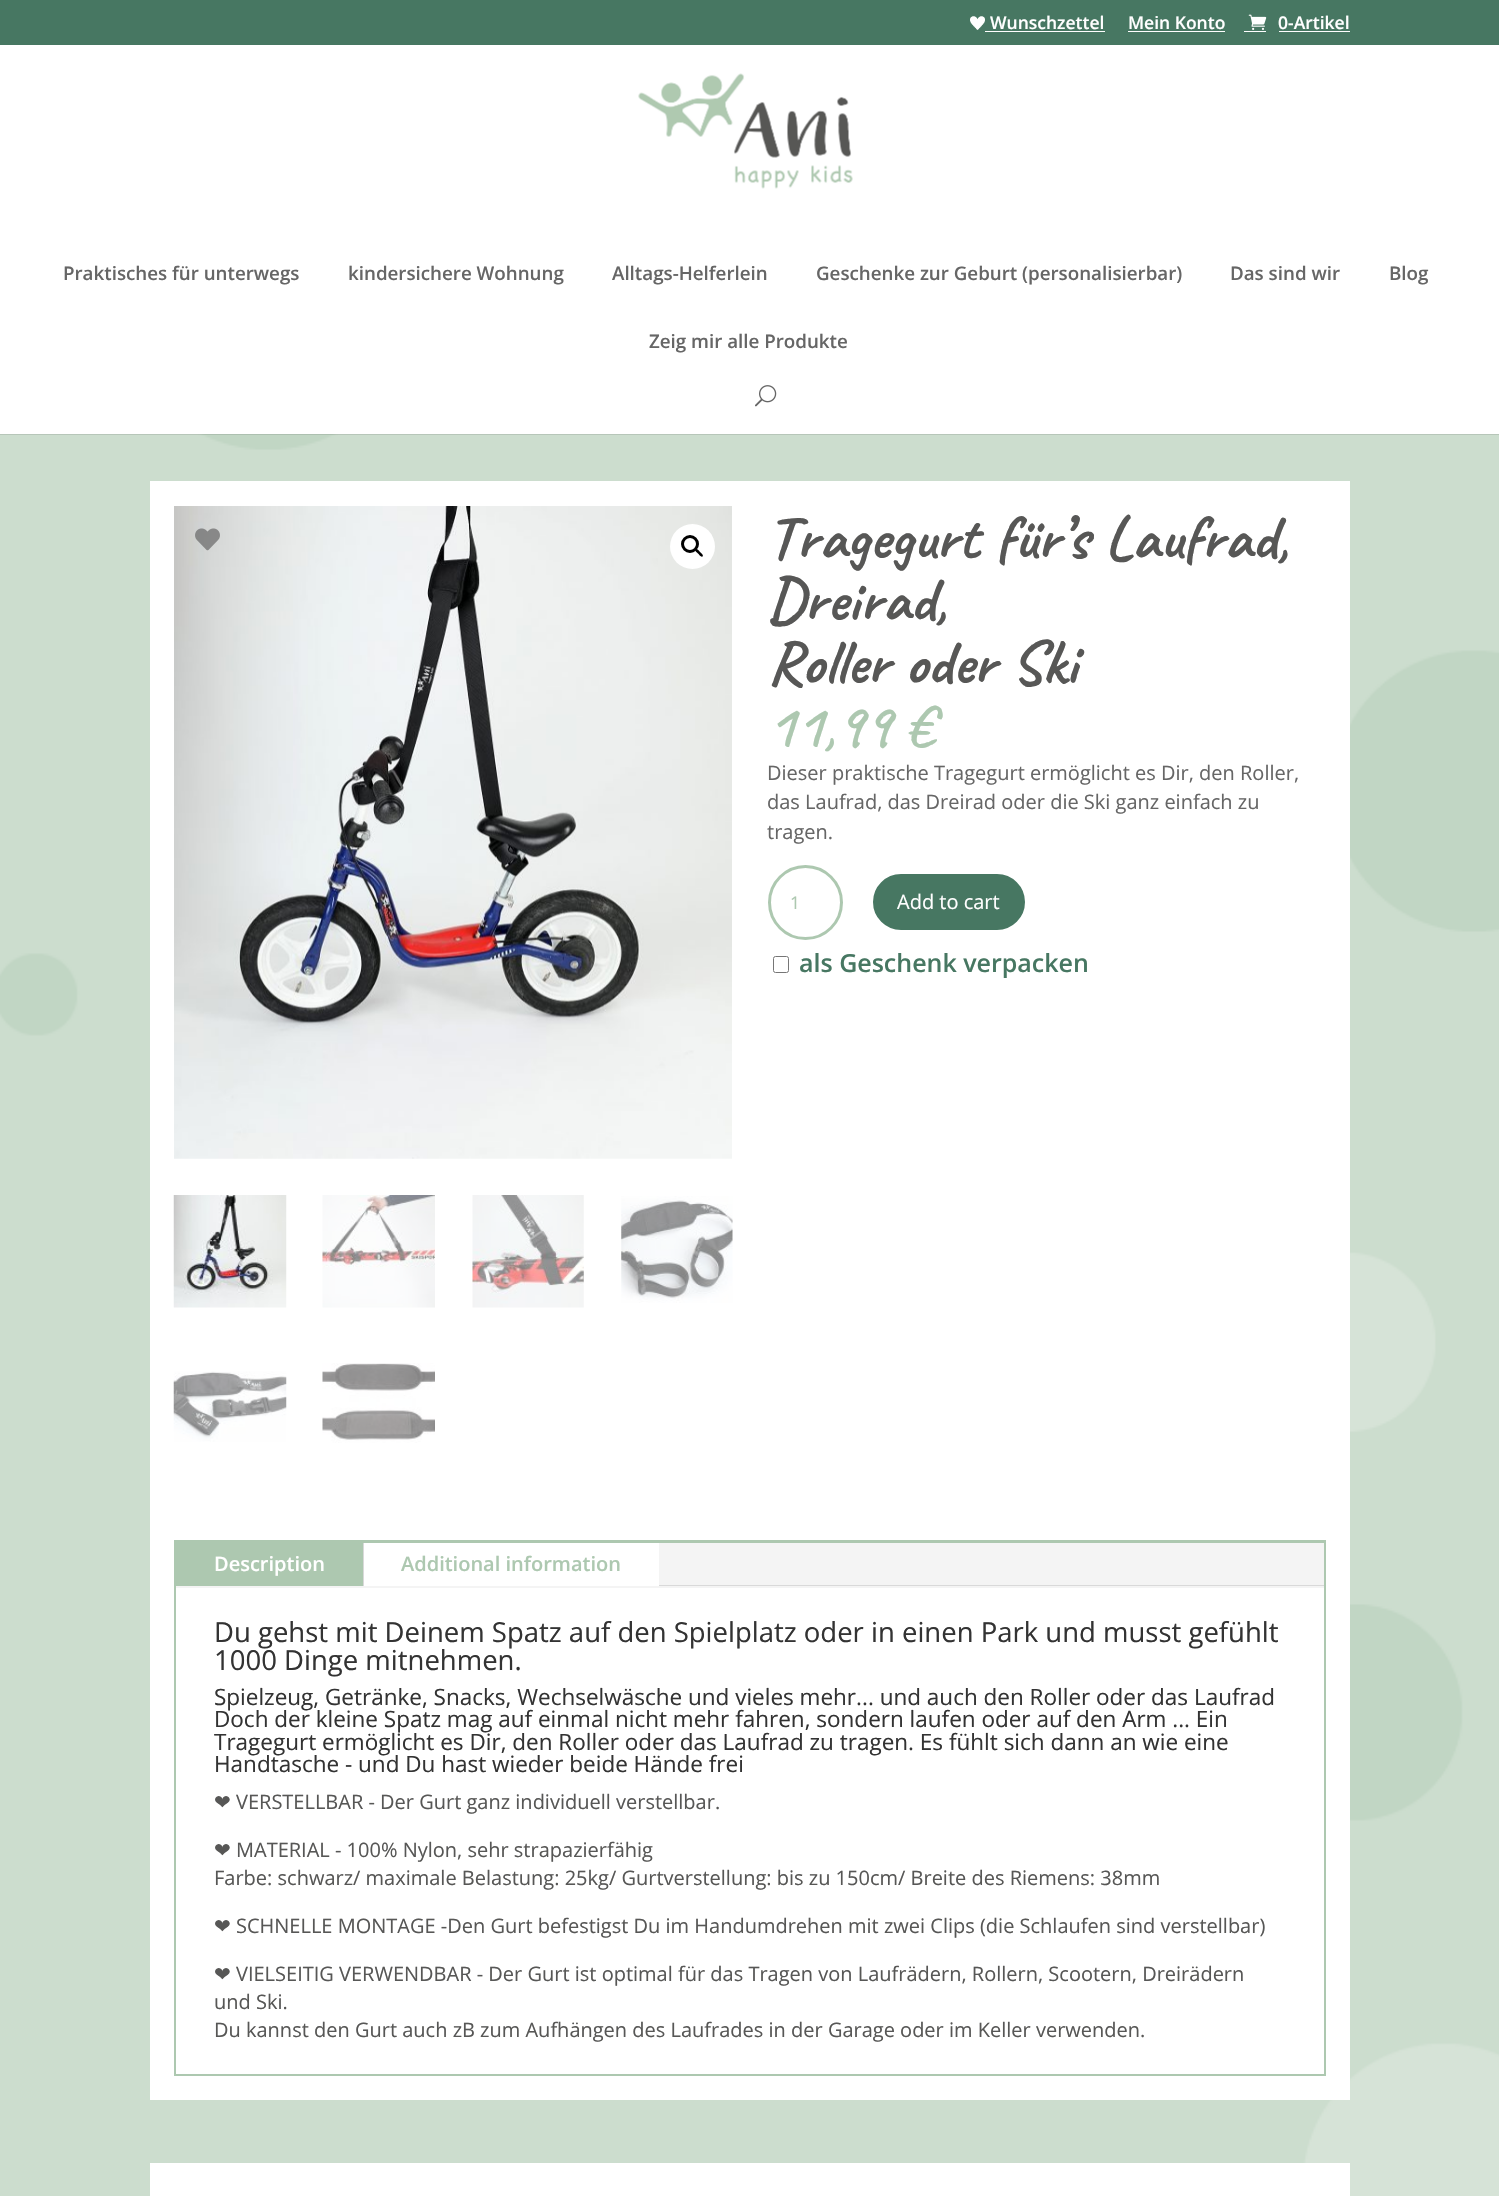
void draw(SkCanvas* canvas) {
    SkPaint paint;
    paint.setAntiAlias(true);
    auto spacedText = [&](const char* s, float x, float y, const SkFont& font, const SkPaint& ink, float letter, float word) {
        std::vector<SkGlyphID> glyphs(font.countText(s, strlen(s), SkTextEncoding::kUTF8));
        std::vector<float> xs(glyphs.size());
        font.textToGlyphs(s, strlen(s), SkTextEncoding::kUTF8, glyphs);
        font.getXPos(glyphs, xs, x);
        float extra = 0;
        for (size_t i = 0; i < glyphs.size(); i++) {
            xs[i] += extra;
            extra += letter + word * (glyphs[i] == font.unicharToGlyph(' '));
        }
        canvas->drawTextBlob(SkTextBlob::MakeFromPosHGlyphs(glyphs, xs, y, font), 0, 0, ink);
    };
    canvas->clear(0xFFFFFFFF);
    canvas->drawImageRect(SkImages::DeferredFromEncodedData(SkData::MakeFromFileName("img1.png")), SkRect::MakeXYWH(0, 434, 1499, 1762), SkSamplingOptions());
    paint.setColor(0xFF477762);
    canvas->drawRect(SkRect::MakeXYWH(0, 0, 1499, 45), paint);
    canvas->drawImageRect(SkImages::DeferredFromEncodedData(SkData::MakeFromFileName("img2.png")), SkRect::MakeXYWH(970, 16, 15, 14), SkSamplingOptions());
    SkFont font1(fontMgr->matchFamilyStyle("Open Sans", SkFontStyle(600, SkFontStyle::kNormal_Width, SkFontStyle::kUpright_Slant)), 17.5f);
    font1.setSubpixel(true);
    paint.setColor(0xFFFFFFFF);
    canvas->drawString("Wunschzettel", 990, 29, font1, paint);
    canvas->drawRect(SkRect::MakeXYWH(985, 31, 120, 1), paint);
    canvas->drawString("Mein Konto", 1128, 29, font1, paint);
    canvas->drawRect(SkRect::MakeXYWH(1128, 31, 97, 1), paint);
    canvas->drawImageRect(SkImages::DeferredFromEncodedData(SkData::MakeFromFileName("img3.png")), SkRect::MakeXYWH(1248, 14, 19, 16), SkSamplingOptions());
    canvas->drawString("0-Artikel", 1278, 29, font1, paint);
    canvas->drawRect(SkRect::MakeXYWH(1244, 31, 22, 1), paint);
    canvas->drawRect(SkRect::MakeXYWH(1279, 31, 71, 1), paint);
    paint.setColor(0x1A000000);
    canvas->drawRect(SkRect::MakeXYWH(0, 434, 1499, 1), paint);
    canvas->drawImageRect(SkImages::DeferredFromEncodedData(SkData::MakeFromFileName("img4.png")), SkRect::MakeXYWH(638, 73, 215, 116), SkSamplingOptions());
    SkFont font2(fontMgr->matchFamilyStyle("Open Sans", SkFontStyle(600, SkFontStyle::kNormal_Width, SkFontStyle::kUpright_Slant)), 18.75f);
    font2.setSubpixel(true);
    paint.setColor(0xFF666666);
    canvas->drawString("Praktisches für unterwegs", 63, 280, font2, paint);
    canvas->drawString("kindersichere Wohnung", 348, 280, font2, paint);
    canvas->drawString("Alltags-Helferlein", 612, 280, font2, paint);
    canvas->drawString("Geschenke zur Geburt (personalisierbar)", 816, 280, font2, paint);
    canvas->drawString("Das sind wir", 1230, 280, font2, paint);
    canvas->drawString("Blog", 1389, 280, font2, paint);
    canvas->drawString("Zeig mir alle Produkte", 649, 348, font2, paint);
    canvas->drawImageRect(SkImages::DeferredFromEncodedData(SkData::MakeFromFileName("img5.png")), SkRect::MakeXYWH(755, 385, 22, 22), SkSamplingOptions());
    paint.setColor(0xFFFFFFFF);
    canvas->drawRect(SkRect::MakeXYWH(150, 481, 1200, 1619), paint);
    canvas->drawImageRect(SkImages::DeferredFromEncodedData(SkData::MakeFromFileName("img6.png")), SkRect::MakeXYWH(174, 506, 558, 653), SkSamplingOptions());
    canvas->drawImageRect(SkImages::DeferredFromEncodedData(SkData::MakeFromFileName("img7.png")), SkRect::MakeXYWH(195, 528, 25, 23), SkSamplingOptions());
    canvas->drawCircle(692.5f, 546.5f, 22.5f, paint);
    paint.setStyle(SkPaint::kStroke_Style);
    paint.setStrokeWidth(3);
    paint.setColor(0xFF000000);
    canvas->drawCircle(690, 544, 7.5f, paint);
    paint.setStyle(SkPaint::kFill_Style);
    canvas->drawPath(SkPathBuilder().moveTo(695.5f, 549).cubicTo(697, 548, 699, 551, 700, 552).cubicTo(700.5f, 552.5f, 704, 555, 702.5f, 556.5f).cubicTo(701, 557.5f, 699, 554.5f, 698, 553.5f).cubicTo(697.5f, 553, 694, 550.5f, 695.5f, 549).close().detach(), paint);
    canvas->drawImageRect(SkImages::DeferredFromEncodedData(SkData::MakeFromFileName("img8.png")), SkRect::MakeXYWH(173, 1195, 114, 113), SkSamplingOptions());
    canvas->drawImageRect(SkImages::DeferredFromEncodedData(SkData::MakeFromFileName("img9.png")), SkRect::MakeXYWH(322, 1195, 113, 113), SkSamplingOptions());
    canvas->drawImageRect(SkImages::DeferredFromEncodedData(SkData::MakeFromFileName("img10.png")), SkRect::MakeXYWH(472, 1195, 112, 113), SkSamplingOptions());
    canvas->drawImageRect(SkImages::DeferredFromEncodedData(SkData::MakeFromFileName("img11.png")), SkRect::MakeXYWH(621, 1196, 112, 107), SkSamplingOptions());
    canvas->drawImageRect(SkImages::DeferredFromEncodedData(SkData::MakeFromFileName("img12.png")), SkRect::MakeXYWH(173, 1371, 114, 71), SkSamplingOptions());
    canvas->drawImageRect(SkImages::DeferredFromEncodedData(SkData::MakeFromFileName("img13.png")), SkRect::MakeXYWH(322, 1363, 113, 80), SkSamplingOptions());
    SkFont font3(fontMgr->matchFamilyStyle("Caveat", SkFontStyle::Bold()), 62.5f);
    font3.setSubpixel(true);
    paint.setColor(0xFF575756);
    canvas->drawString("Tragegurt", 767, 558, font3, paint);
    spacedText("für’s Laufrad,", 995, 558, font3, paint, 0, 1);
    canvas->drawString("Dreirad,", 767, 620, font3, paint);
    canvas->drawString("Roller oder Ski", 767, 683, font3, paint);
    SkFont font4(fontMgr->matchFamilyStyle("Caveat", SkFontStyle(600, SkFontStyle::kNormal_Width, SkFontStyle::kUpright_Slant)), 62.5f);
    font4.setSubpixel(true);
    paint.setColor(0xFFADC8B0);
    canvas->drawString("11,99 €", 767, 746, font4, paint);
    SkFont font5(fontMgr->matchFamilyStyle("Open Sans", SkFontStyle::Normal()), 20);
    font5.setSubpixel(true);
    paint.setColor(0xFF666666);
    canvas->drawString("Dieser praktische Tragegurt ermöglicht es Dir, den Roller,", 767, 780, font5, paint);
    canvas->drawString("das Laufrad, das Dreirad oder die Ski ganz einfach zu", 767, 809, font5, paint);
    canvas->drawString("tragen.", 767, 839, font5, paint);
    paint.setStyle(SkPaint::kStroke_Style);
    paint.setColor(0xFFADC8B0);
    canvas->drawCircle(805.5f, 902.5f, 36, paint);
    SkFont font6(fontMgr->matchFamilyStyle("Open Sans", SkFontStyle::Normal()), 17.5f);
    font6.setSubpixel(true);
    paint.setStyle(SkPaint::kFill_Style);
    canvas->drawString("1", 790, 909, font6, paint);
    paint.setColor(0xFF477762);
    canvas->drawRoundRect(SkRect::MakeXYWH(875.5f, 876.5f, 147, 51), 25.5f, 25.5f, paint);
    paint.setStyle(SkPaint::kStroke_Style);
    paint.setStrokeWidth(5);
    canvas->drawRoundRect(SkRect::MakeXYWH(875.5f, 876.5f, 147, 51), 25.5f, 25.5f, paint);
    paint.setStyle(SkPaint::kFill_Style);
    paint.setColor(0xFFFFFFFF);
    canvas->drawString("Add to cart", 897, 909, font5, paint);
    paint.setStyle(SkPaint::kStroke_Style);
    paint.setStrokeWidth(1);
    paint.setColor(0xFF767676);
    canvas->drawRoundRect(SkRect::MakeXYWH(773.5f, 956.5f, 15, 16), 2, 2, paint);
    SkFont font7(fontMgr->matchFamilyStyle("Open Sans", SkFontStyle(600, SkFontStyle::kNormal_Width, SkFontStyle::kUpright_Slant)), 25);
    font7.setSubpixel(true);
    paint.setStyle(SkPaint::kFill_Style);
    paint.setColor(0xFF477762);
    canvas->drawString("als Geschenk verpacken", 799, 972, font7, paint);
    paint.setStyle(SkPaint::kStroke_Style);
    paint.setStrokeWidth(3);
    paint.setColor(0xFFADC8B0);
    canvas->drawRect(SkRect::MakeXYWH(175.5f, 1541.5f, 1149, 533), paint);
    paint.setStyle(SkPaint::kFill_Style);
    paint.setColor(0xFFF4F4F4);
    canvas->drawRect(SkRect::MakeXYWH(176, 1543, 1148, 45), paint);
    paint.setColor(0xFFADC8B0);
    canvas->drawRect(SkRect::MakeXYWH(176, 1543, 187, 43), paint);
    paint.setColor(0xFFD9D9D9);
    canvas->drawRect(SkRect::MakeXYWH(363, 1543, 1, 43), paint);
    SkFont font8(fontMgr->matchFamilyStyle("Open Sans", SkFontStyle(600, SkFontStyle::kNormal_Width, SkFontStyle::kUpright_Slant)), 20);
    font8.setSubpixel(true);
    paint.setColor(0xFFFFFFFF);
    canvas->drawString("Description", 214, 1571, font8, paint);
    canvas->drawRect(SkRect::MakeXYWH(364, 1543, 295, 43), paint);
    paint.setColor(0xFFADC8B0);
    canvas->drawString("Additional information", 401, 1571, font8, paint);
    paint.setColor(0xFFD9D9D9);
    canvas->drawRect(SkRect::MakeXYWH(659, 1585, 665, 1), paint);
    paint.setColor(0xFFFFFFFF);
    canvas->drawRect(SkRect::MakeXYWH(176, 1588, 1148, 486), paint);
    SkFont font9(fontMgr->matchFamilyStyle("Open Sans", SkFontStyle::Normal()), 27.5f);
    font9.setSubpixel(true);
    paint.setColor(0xFF333333);
    canvas->drawString("Du gehst mit Deinem Spatz auf den Spielplatz oder in einen Park und musst gefühlt", 214, 1642, font9, paint);
    canvas->drawString("1000 Dinge mitnehmen.", 214, 1670, font9, paint);
    SkFont font10(fontMgr->matchFamilyStyle("Open Sans", SkFontStyle::Normal()), 22.5f);
    font10.setSubpixel(true);
    canvas->drawString("Spielzeug, Getränke, Snacks, Wechselwäsche und vieles mehr... und auch den Roller oder das Laufrad", 214, 1705, font10, paint);
    canvas->drawString("Doch der kleine Spatz mag auf einmal nicht mehr fahren, sondern laufen oder auf den Arm ... Ein", 214, 1727, font10, paint);
    canvas->drawString("Tragegurt ermöglicht es Dir, den Roller oder das Laufrad zu tragen. Es fühlt sich dann an wie eine", 214, 1750, font10, paint);
    canvas->drawString("Handtasche - und Du hast wieder beide Hände frei", 214, 1772, font10, paint);
    SkFont font11(fontMgr->matchFamilyStyle("DejaVu Sans", SkFontStyle::Normal()), 20);
    font11.setSubpixel(true);
    paint.setColor(0xFF575756);
    canvas->drawString("❤", 214, 1809, font11, paint);
    canvas->drawString("VERSTELLBAR - Der Gurt ganz individuell verstellbar.", 236, 1809, font5, paint);
    canvas->drawString("❤", 214, 1857, font11, paint);
    canvas->drawString("MATERIAL - 100% Nylon, sehr strapazierfähig", 236, 1857, font5, paint);
    canvas->drawString("Farbe: schwarz/ maximale Belastung: 25kg/ Gurtverstellung: bis zu 150cm/ Breite des Riemens: 38mm", 214, 1885, font5, paint);
    canvas->drawString("❤", 214, 1933, font11, paint);
    canvas->drawString("SCHNELLE MONTAGE -Den Gurt befestigst Du im Handumdrehen mit zwei Clips (die Schlaufen sind verstellbar)", 236, 1933, font5, paint);
    canvas->drawString("❤", 214, 1981, font11, paint);
    canvas->drawString("VIELSEITIG VERWENDBAR - Der Gurt ist optimal für das Tragen von Laufrädern, Rollern, Scootern, Dreirädern", 236, 1981, font5, paint);
    canvas->drawString("und Ski.", 214, 2009, font5, paint);
    canvas->drawString("Du kannst den Gurt auch zB zum Aufhängen des Laufrades in der Garage oder im Keller verwenden.", 214, 2037, font5, paint);
    paint.setColor(0xFFFFFFFF);
    canvas->drawRect(SkRect::MakeXYWH(150, 2163, 1200, 33), paint);
}
